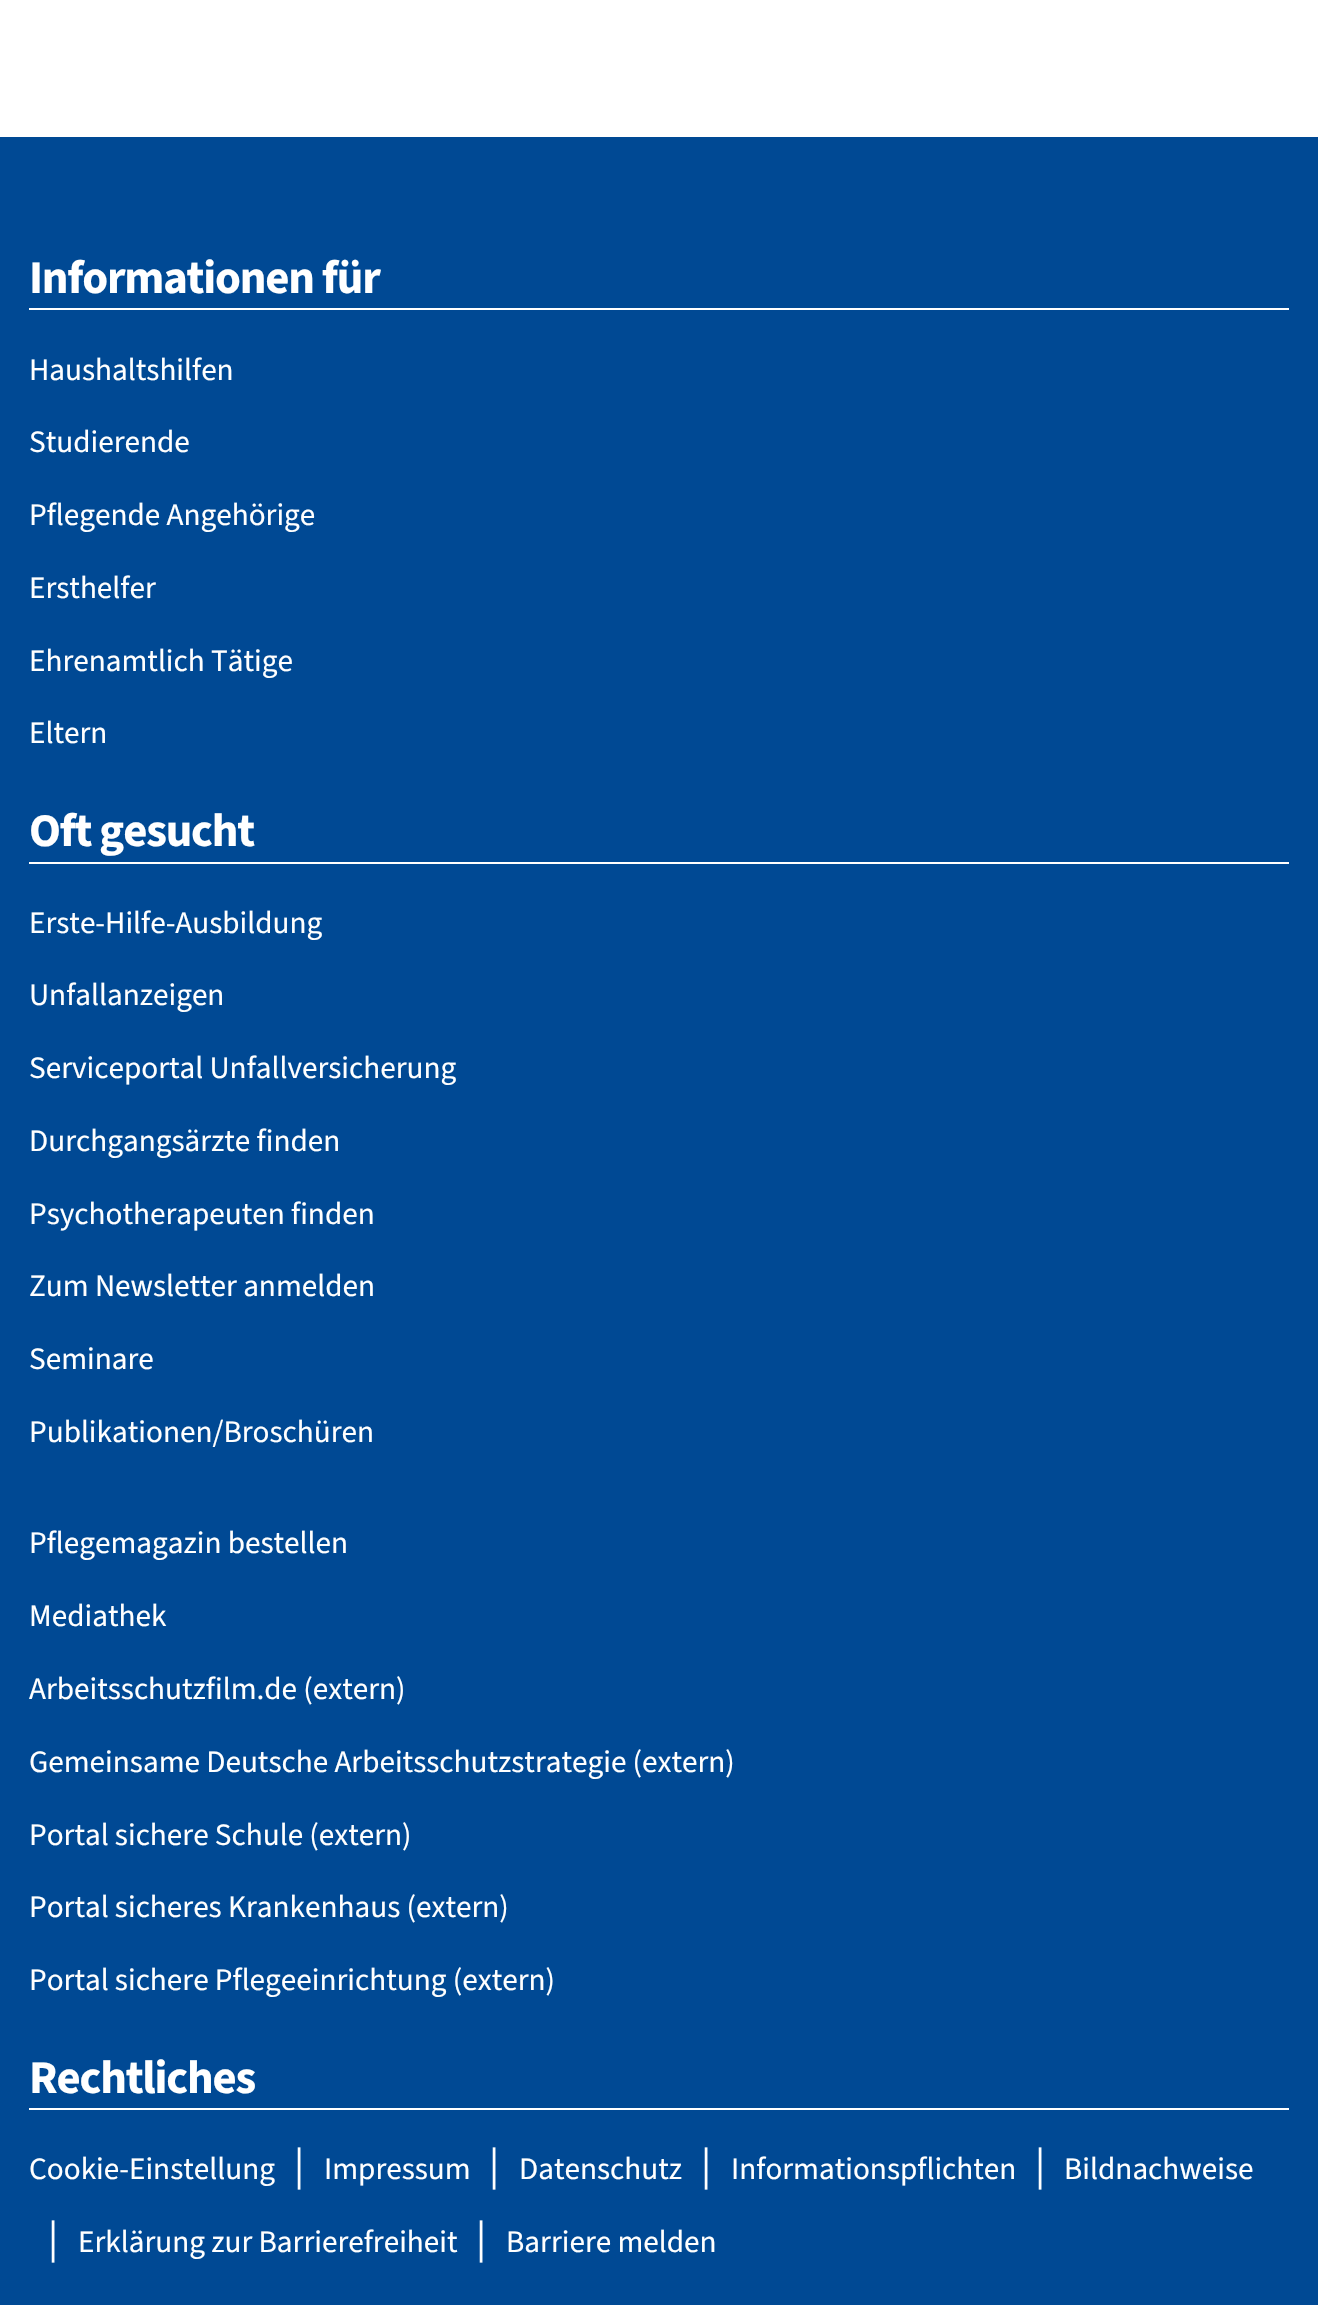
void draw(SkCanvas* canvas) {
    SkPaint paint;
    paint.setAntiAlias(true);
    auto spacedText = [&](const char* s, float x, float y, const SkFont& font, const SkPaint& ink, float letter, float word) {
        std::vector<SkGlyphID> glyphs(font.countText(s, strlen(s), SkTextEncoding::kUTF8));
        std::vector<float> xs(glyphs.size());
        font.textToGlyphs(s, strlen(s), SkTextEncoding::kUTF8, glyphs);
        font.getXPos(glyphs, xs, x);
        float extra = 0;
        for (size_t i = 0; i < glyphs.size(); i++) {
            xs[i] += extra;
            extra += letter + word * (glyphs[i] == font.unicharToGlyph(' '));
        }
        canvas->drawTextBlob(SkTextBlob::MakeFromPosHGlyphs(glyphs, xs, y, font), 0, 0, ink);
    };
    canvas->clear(0xFFFFFFFF);
    paint.setColor(0xFF004994);
    canvas->drawRect(SkRect::MakeXYWH(0, 137, 1318, 2168), paint);
    paint.setColor(0xFFFFFFFF);
    canvas->drawRect(SkRect::MakeXYWH(29, 308, 1260, 2), paint);
    SkFont font1(fontMgr->matchFamilyStyle("Source Sans 3", SkFontStyle(200, SkFontStyle::kNormal_Width, SkFontStyle::kUpright_Slant)), 46.75f);
    font1.setSubpixel(true);
    spacedText("Informationen für", 29, 293, font1, paint, -1.2f, 0);
    SkFont font2(fontMgr->matchFamilyStyle("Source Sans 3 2", SkFontStyle(200, SkFontStyle::kNormal_Width, SkFontStyle::kUpright_Slant)), 31.2f);
    font2.setSubpixel(true);
    canvas->drawString("Haushaltshilfen", 29, 380, font2, paint);
    canvas->drawString("Studierende", 29, 452, font2, paint);
    canvas->drawString("Pflegende Angehörige", 29, 525, font2, paint);
    canvas->drawString("Ersthelfer", 29, 598, font2, paint);
    canvas->drawString("Ehrenamtlich Tätige", 29, 671, font2, paint);
    canvas->drawString("Eltern", 29, 743, font2, paint);
    canvas->drawRect(SkRect::MakeXYWH(29, 862, 1260, 2), paint);
    spacedText("Oft gesucht", 29, 846, font1, paint, -1.2f, 0);
    canvas->drawString("Erste-Hilfe-Ausbildung", 29, 933, font2, paint);
    canvas->drawString("Unfallanzeigen", 29, 1005, font2, paint);
    canvas->drawString("Serviceportal Unfallversicherung", 29, 1078, font2, paint);
    canvas->drawString("Durchgangsärzte finden", 29, 1151, font2, paint);
    canvas->drawString("Psychotherapeuten finden", 29, 1224, font2, paint);
    canvas->drawString("Zum Newsletter anmelden", 29, 1296, font2, paint);
    canvas->drawString("Seminare", 29, 1369, font2, paint);
    canvas->drawString("Publikationen/Broschüren", 29, 1442, font2, paint);
    canvas->drawString("Pflegemagazin bestellen", 29, 1553, font2, paint);
    canvas->drawString("Mediathek", 29, 1626, font2, paint);
    canvas->drawString("Arbeitsschutzfilm.de (extern)", 29, 1699, font2, paint);
    canvas->drawString("Gemeinsame Deutsche Arbeitsschutzstrategie (extern)", 29, 1772, font2, paint);
    canvas->drawString("Portal sichere Schule (extern)", 29, 1845, font2, paint);
    canvas->drawString("Portal sicheres Krankenhaus (extern)", 29, 1917, font2, paint);
    canvas->drawString("Portal sichere Pflegeeinrichtung (extern)", 29, 1990, font2, paint);
    canvas->drawRect(SkRect::MakeXYWH(29, 2108, 1260, 2), paint);
    spacedText("Rechtliches", 29, 2093, font1, paint, -1.2f, 0);
    canvas->drawString("Cookie-Einstellung", 29, 2179, font2, paint);
    SkFont font3(fontMgr->matchFamilyStyle("Source Sans 3 2", SkFontStyle(200, SkFontStyle::kNormal_Width, SkFontStyle::kUpright_Slant)), 42);
    font3.setSubpixel(true);
    canvas->drawString("|", 294, 2179, font3, paint);
    canvas->drawString("Impressum", 324, 2179, font2, paint);
    canvas->drawString("|", 489, 2179, font3, paint);
    canvas->drawString("Datenschutz", 519, 2179, font2, paint);
    canvas->drawString("|", 701, 2179, font3, paint);
    canvas->drawString("Informationspflichten", 731, 2179, font2, paint);
    canvas->drawString("|", 1035, 2179, font3, paint);
    canvas->drawString("Bildnachweise", 1064, 2179, font2, paint);
    canvas->drawString("|", 48, 2252, font3, paint);
    canvas->drawString("Erklärung zur Barrierefreiheit", 78, 2252, font2, paint);
    canvas->drawString("|", 476, 2252, font3, paint);
    canvas->drawString("Barriere melden", 506, 2252, font2, paint);
}
